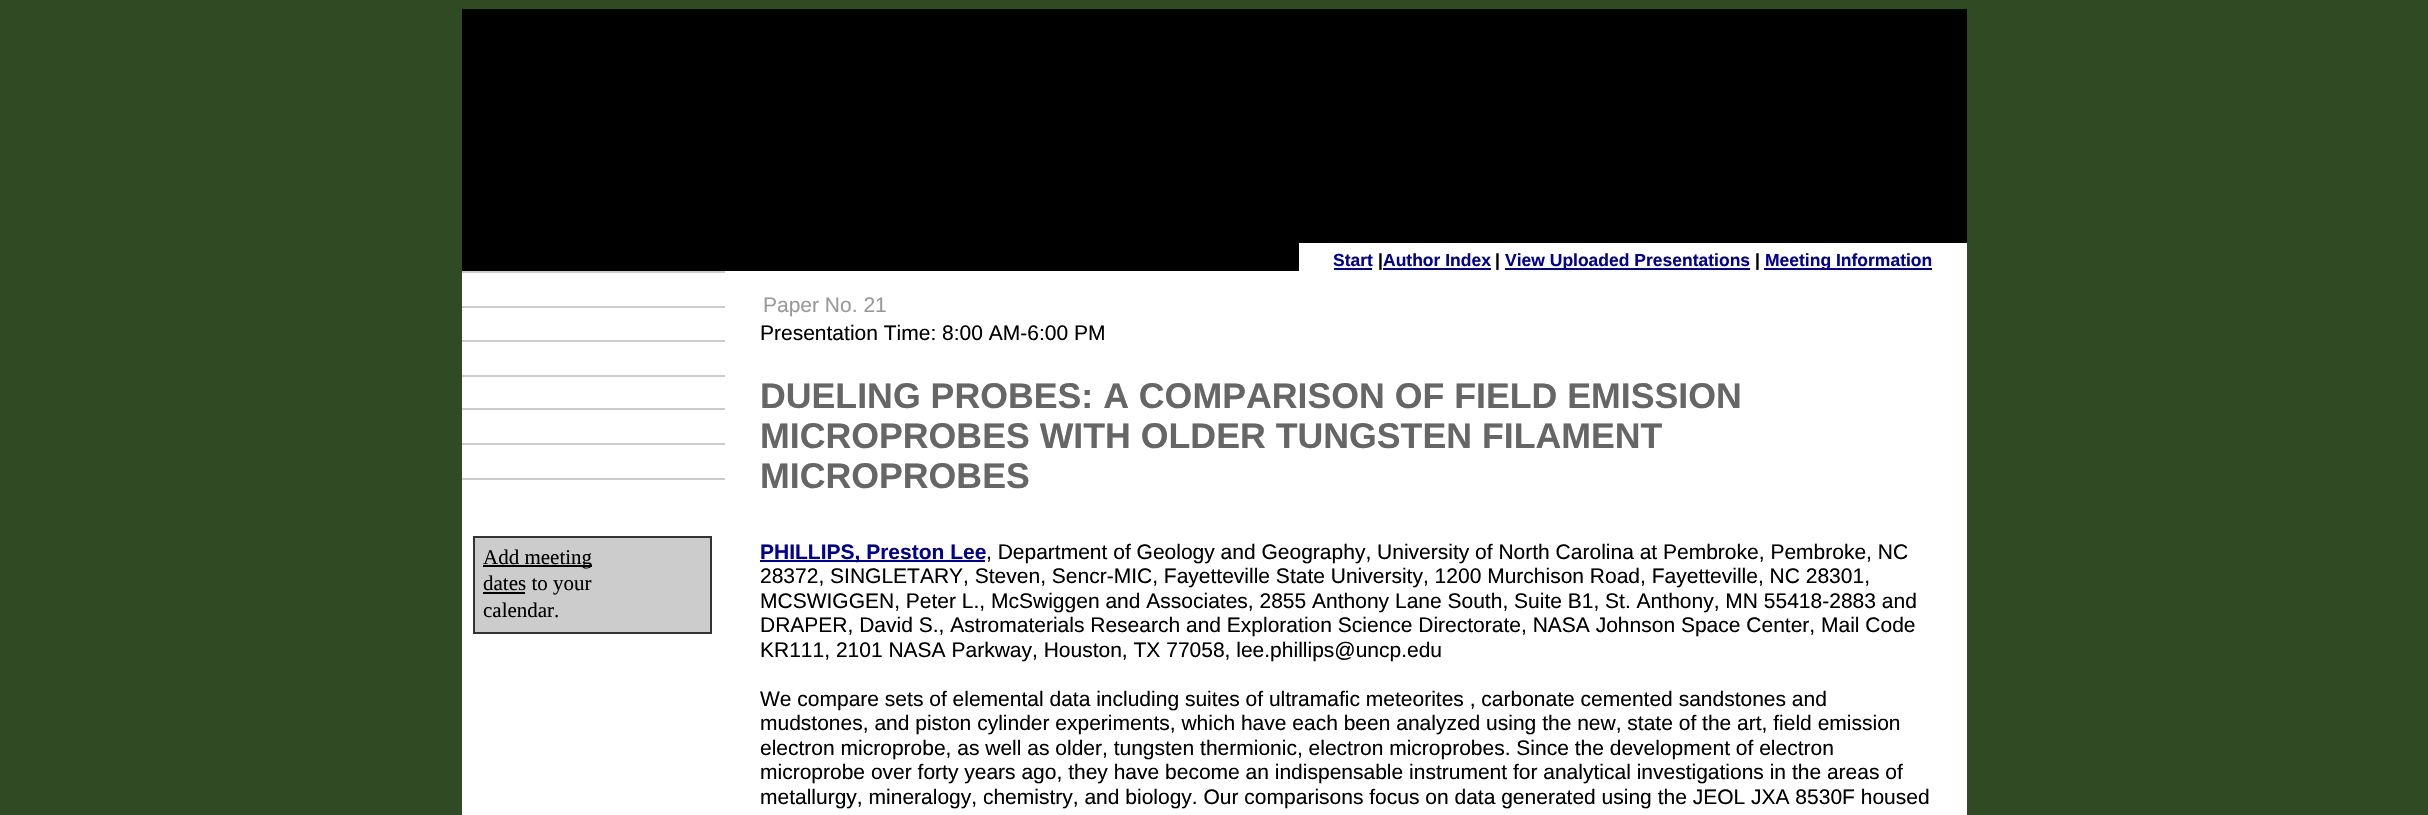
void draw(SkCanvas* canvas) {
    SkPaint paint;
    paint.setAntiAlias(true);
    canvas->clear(0xFF304A24);
    paint.setColor(0xFF000000);
    canvas->drawRect(SkRect::MakeXYWH(462, 9, 1505, 262), paint);
    paint.setColor(0xFFFFFFFF);
    canvas->drawRect(SkRect::MakeXYWH(462, 271, 1505, 544), paint);
    paint.setColor(0xFFCCCCCC);
    canvas->drawRect(SkRect::MakeXYWH(462, 271, 263, 2), paint);
    canvas->drawRect(SkRect::MakeXYWH(462, 306, 263, 2), paint);
    canvas->drawRect(SkRect::MakeXYWH(462, 340, 263, 2), paint);
    canvas->drawRect(SkRect::MakeXYWH(462, 375, 263, 2), paint);
    canvas->drawRect(SkRect::MakeXYWH(462, 408, 263, 2), paint);
    canvas->drawRect(SkRect::MakeXYWH(462, 443, 263, 2), paint);
    canvas->drawRect(SkRect::MakeXYWH(462, 478, 263, 2), paint);
    canvas->drawRect(SkRect::MakeXYWH(474, 537, 237, 96), paint);
    paint.setStyle(SkPaint::kStroke_Style);
    paint.setStrokeWidth(2);
    paint.setColor(0xFF333333);
    canvas->drawRect(SkRect::MakeXYWH(474, 537, 237, 96), paint);
    paint.setStyle(SkPaint::kFill_Style);
    paint.setColor(0xFF000000);
    canvas->drawRect(SkRect::MakeXYWH(483, 565, 109, 2), paint);
    SkFont font1(fontMgr->matchFamilyStyle("Liberation Serif", SkFontStyle::Normal()), 21);
    font1.setSubpixel(true);
    canvas->drawString("Add meeting", 483, 564, font1, paint);
    canvas->drawRect(SkRect::MakeXYWH(483, 592, 42, 2), paint);
    canvas->drawString("dates to your", 483, 590, font1, paint);
    canvas->drawString("calendar.", 483, 617, font1, paint);
    paint.setColor(0xFFFFFFFF);
    canvas->drawRect(SkRect::MakeXYWH(1299, 243, 668, 28), paint);
    SkFont font2(fontMgr->matchFamilyStyle("Liberation Sans", SkFontStyle::Bold()), 17.5f);
    font2.setSubpixel(true);
    paint.setColor(0xFF000099);
    canvas->drawString("Start", 1333, 266, font2, paint);
    canvas->drawRect(SkRect::MakeXYWH(1334, 268, 38, 2), paint);
    paint.setColor(0xFF000000);
    canvas->drawString("|", 1378, 266, font2, paint);
    paint.setColor(0xFF000099);
    canvas->drawString("Author Index", 1383, 266, font2, paint);
    canvas->drawRect(SkRect::MakeXYWH(1383, 268, 108, 2), paint);
    paint.setColor(0xFF000000);
    canvas->drawString("|", 1495, 266, font2, paint);
    paint.setColor(0xFF000099);
    canvas->drawRect(SkRect::MakeXYWH(1505, 268, 245, 2), paint);
    canvas->drawString("View Uploaded Presentations", 1505, 266, font2, paint);
    paint.setColor(0xFF000000);
    canvas->drawString("|", 1755, 266, font2, paint);
    paint.setColor(0xFF000099);
    canvas->drawRect(SkRect::MakeXYWH(1764, 268, 168, 2), paint);
    canvas->drawString("Meeting Information", 1765, 266, font2, paint);
    SkFont font3(fontMgr->matchFamilyStyle("Liberation Sans", SkFontStyle::Normal()), 21);
    font3.setSubpixel(true);
    paint.setColor(0xFF999999);
    canvas->drawString("Paper No. 21", 763, 312, font3, paint);
    paint.setColor(0xFF000000);
    canvas->drawString("Presentation Time: 8:00 AM-6:00 PM", 760, 340, font3, paint);
    SkFont font4(fontMgr->matchFamilyStyle("Liberation Sans", SkFontStyle::Bold()), 35.7f);
    font4.setSubpixel(true);
    paint.setColor(0xFF666666);
    canvas->drawString("DUELING PROBES: A COMPARISON OF FIELD EMISSION", 760, 408, font4, paint);
    canvas->drawString("MICROPROBES WITH OLDER TUNGSTEN FILAMENT", 760, 448, font4, paint);
    canvas->drawString("MICROPROBES", 760, 488, font4, paint);
    paint.setColor(0xFF000099);
    canvas->drawRect(SkRect::MakeXYWH(760, 560, 225, 2), paint);
    SkFont font5(fontMgr->matchFamilyStyle("Liberation Sans", SkFontStyle::Bold()), 21);
    font5.setSubpixel(true);
    canvas->drawString("PHILLIPS, Preston Lee", 760, 559, font5, paint);
    paint.setColor(0xFF000000);
    canvas->drawString(", Department of Geology and Geography, University of North Carolina at Pembroke, Pembroke, NC", 986, 559, font3, paint);
    canvas->drawString("28372, SINGLETARY, Steven, Sencr-MIC, Fayetteville State University, 1200 Murchison Road, Fayetteville, NC 28301,", 760, 583, font3, paint);
    canvas->drawString("MCSWIGGEN, Peter L., McSwiggen and Associates, 2855 Anthony Lane South, Suite B1, St. Anthony, MN 55418-2883 and", 760, 608, font3, paint);
    canvas->drawString("DRAPER, David S., Astromaterials Research and Exploration Science Directorate, NASA Johnson Space Center, Mail Code", 760, 632, font3, paint);
    canvas->drawString("KR111, 2101 NASA Parkway, Houston, TX 77058, lee.phillips@uncp.edu", 760, 657, font3, paint);
    canvas->drawString("We compare sets of elemental data including suites of ultramafic meteorites , carbonate cemented sandstones and", 760, 706, font3, paint);
    canvas->drawString("mudstones, and piston cylinder experiments, which have each been analyzed using the new, state of the art, field emission", 760, 730, font3, paint);
    canvas->drawString("electron microprobe, as well as older, tungsten thermionic, electron microprobes. Since the development of electron", 760, 755, font3, paint);
    canvas->drawString("microprobe over forty years ago, they have become an indispensable instrument for analytical investigations in the areas of", 760, 779, font3, paint);
    canvas->drawString("metallurgy, mineralogy, chemistry, and biology. Our comparisons focus on data generated using the JEOL JXA 8530F housed", 760, 804, font3, paint);
}
